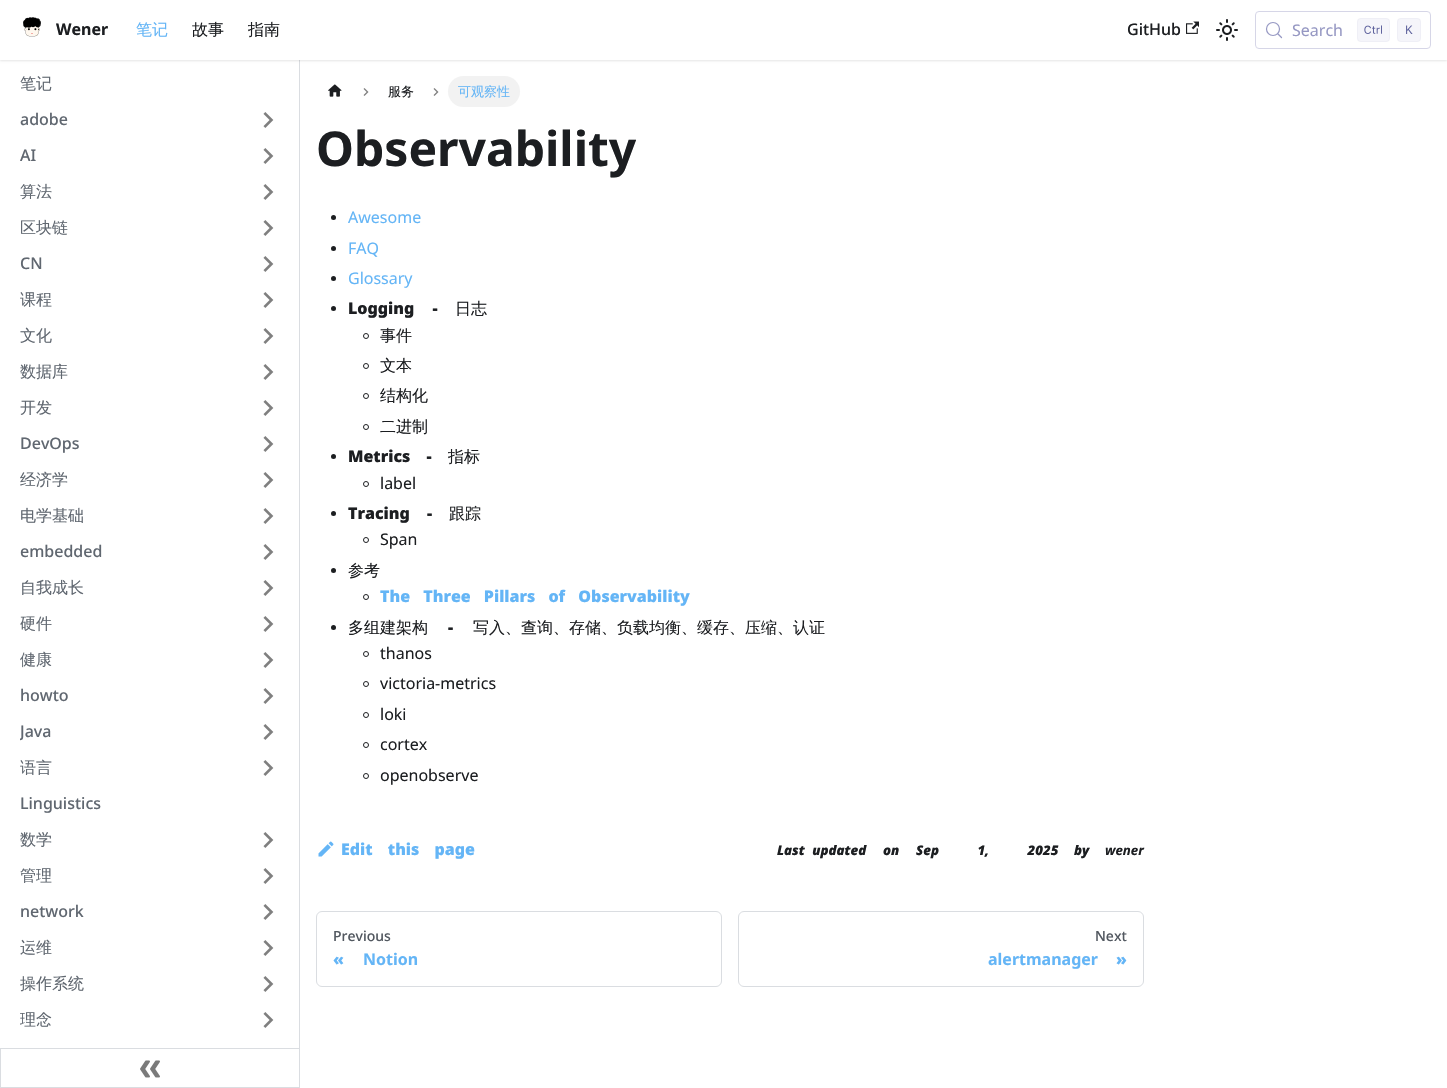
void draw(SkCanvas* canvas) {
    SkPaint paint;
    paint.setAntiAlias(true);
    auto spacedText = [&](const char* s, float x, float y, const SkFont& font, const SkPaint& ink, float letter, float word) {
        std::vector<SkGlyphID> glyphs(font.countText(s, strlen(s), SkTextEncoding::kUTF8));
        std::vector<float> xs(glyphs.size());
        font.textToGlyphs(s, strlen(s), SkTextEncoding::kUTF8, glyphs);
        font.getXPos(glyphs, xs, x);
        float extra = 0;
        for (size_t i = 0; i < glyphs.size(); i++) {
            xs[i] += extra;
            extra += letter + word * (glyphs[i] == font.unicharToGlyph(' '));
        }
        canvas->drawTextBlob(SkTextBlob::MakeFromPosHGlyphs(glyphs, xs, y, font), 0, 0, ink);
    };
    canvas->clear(0xFFFFFFFF);
    paint.setColor(0xFFDADDE1);
    canvas->drawRect(SkRect::MakeXYWH(299, 60, 1, 988), paint);
    paint.setColor(0x1A000000);
    paint.setMaskFilter(SkMaskFilter::MakeBlur(kNormal_SkBlurStyle, 1));
    canvas->drawRect(SkRect::MakeXYWH(0, 1, 1447, 60), paint);
    paint.setMaskFilter(nullptr);
    paint.setColor(0xFFFFFFFF);
    canvas->drawRect(SkRect::MakeXYWH(0, 0, 1447, 60), paint);
    canvas->drawImageRect(SkImages::DeferredFromEncodedData(SkData::MakeFromFileName("img1.png")), SkRect::MakeXYWH(23, 17, 18, 20), SkSamplingOptions());
    SkFont font1(fontMgr->matchFamilyStyle("Noto Sans", SkFontStyle::Bold()), 16);
    font1.setSubpixel(true);
    paint.setColor(0xFF1C1E21);
    canvas->drawString("Wener", 56, 35, font1, paint);
    SkFont font2(fontMgr->matchFamilyStyle("WenQuanYi Zen Hei", SkFontStyle(500, SkFontStyle::kNormal_Width, SkFontStyle::kUpright_Slant)), 16);
    font2.setSubpixel(true);
    paint.setColor(0xFF64B5F6);
    canvas->drawString("笔记", 136, 35, font2, paint);
    paint.setColor(0xFF1C1E21);
    canvas->drawString("故事", 192, 35, font2, paint);
    canvas->drawString("指南", 248, 35, font2, paint);
    SkFont font3(fontMgr->matchFamilyStyle("Noto Sans", SkFontStyle(500, SkFontStyle::kNormal_Width, SkFontStyle::kUpright_Slant)), 16);
    font3.setSubpixel(true);
    canvas->drawString("GitHub", 1127, 35, font3, paint);
    canvas->drawImageRect(SkImages::DeferredFromEncodedData(SkData::MakeFromFileName("img2.png")), SkRect::MakeXYWH(1186, 21, 13, 13), SkSamplingOptions());
    canvas->drawImageRect(SkImages::DeferredFromEncodedData(SkData::MakeFromFileName("img3.png")), SkRect::MakeXYWH(1216, 19, 22, 22), SkSamplingOptions());
    paint.setStyle(SkPaint::kStroke_Style);
    paint.setStrokeWidth(1);
    paint.setColor(0xFFD6D6E7);
    canvas->drawRoundRect(SkRect::MakeXYWH(1255.5f, 11.5f, 175, 37), 3.5f, 3.5f, paint);
    paint.setStrokeWidth(1.2f);
    paint.setColor(0xFF9698C3);
    canvas->drawCircle(1273, 29, 6.5f, paint);
    paint.setStrokeWidth(1.3f);
    paint.setStrokeCap(SkPaint::kRound_Cap);
    paint.setStrokeJoin(SkPaint::kRound_Join);
    canvas->drawPath(SkPathBuilder().moveTo(1281.5f, 37.5f).lineTo(1278, 34).detach(), paint);
    SkFont font4(fontMgr->matchFamilyStyle("Noto Sans", SkFontStyle::Normal()), 16);
    font4.setSubpixel(true);
    paint.setStyle(SkPaint::kFill_Style);
    canvas->drawString("Search", 1292, 36, font4, paint);
    paint.setColor(0xFFF5F5FA);
    canvas->drawRoundRect(SkRect::MakeXYWH(1357, 18, 33, 24), 4, 4, paint);
    paint.setStyle(SkPaint::kStroke_Style);
    paint.setStrokeWidth(1);
    paint.setStrokeCap(SkPaint::kButt_Cap);
    paint.setStrokeJoin(SkPaint::kMiter_Join);
    paint.setColor(0x33D6D6E7);
    canvas->drawRoundRect(SkRect::MakeXYWH(1357.5f, 18.5f, 32, 23), 3.5f, 3.5f, paint);
    canvas->drawImageRect(SkImages::DeferredFromEncodedData(SkData::MakeFromFileName("img4.png")), SkRect::MakeXYWH(1364, 25, 18, 9), SkSamplingOptions());
    paint.setStyle(SkPaint::kFill_Style);
    paint.setColor(0xFFF5F5FA);
    canvas->drawRoundRect(SkRect::MakeXYWH(1397, 18, 24, 24), 4, 4, paint);
    paint.setStyle(SkPaint::kStroke_Style);
    paint.setColor(0x33D6D6E7);
    canvas->drawRoundRect(SkRect::MakeXYWH(1397.5f, 18.5f, 23, 23), 3.5f, 3.5f, paint);
    canvas->drawImageRect(SkImages::DeferredFromEncodedData(SkData::MakeFromFileName("img5.png")), SkRect::MakeXYWH(1406, 25, 7, 9), SkSamplingOptions());
    paint.setStyle(SkPaint::kFill_Style);
    paint.setColor(0xFF606770);
    canvas->drawString("笔记", 20, 89, font2, paint);
    canvas->drawString("adobe", 20, 125, font3, paint);
    canvas->drawImageRect(SkImages::DeferredFromEncodedData(SkData::MakeFromFileName("img6.png")), SkRect::MakeXYWH(263, 112, 11, 16), SkSamplingOptions());
    canvas->drawString("AI", 20, 161, font3, paint);
    canvas->drawImageRect(SkImages::DeferredFromEncodedData(SkData::MakeFromFileName("img6.png")), SkRect::MakeXYWH(263, 148, 11, 16), SkSamplingOptions());
    canvas->drawString("算法", 20, 197, font2, paint);
    canvas->drawImageRect(SkImages::DeferredFromEncodedData(SkData::MakeFromFileName("img6.png")), SkRect::MakeXYWH(263, 184, 11, 16), SkSamplingOptions());
    canvas->drawString("区块链", 20, 233, font2, paint);
    canvas->drawImageRect(SkImages::DeferredFromEncodedData(SkData::MakeFromFileName("img6.png")), SkRect::MakeXYWH(263, 220, 11, 16), SkSamplingOptions());
    canvas->drawString("CN", 20, 269, font3, paint);
    canvas->drawImageRect(SkImages::DeferredFromEncodedData(SkData::MakeFromFileName("img6.png")), SkRect::MakeXYWH(263, 256, 11, 16), SkSamplingOptions());
    canvas->drawString("课程", 20, 305, font2, paint);
    canvas->drawImageRect(SkImages::DeferredFromEncodedData(SkData::MakeFromFileName("img6.png")), SkRect::MakeXYWH(263, 292, 11, 16), SkSamplingOptions());
    canvas->drawString("文化", 20, 341, font2, paint);
    canvas->drawImageRect(SkImages::DeferredFromEncodedData(SkData::MakeFromFileName("img6.png")), SkRect::MakeXYWH(263, 328, 11, 16), SkSamplingOptions());
    canvas->drawString("数据库", 20, 377, font2, paint);
    canvas->drawImageRect(SkImages::DeferredFromEncodedData(SkData::MakeFromFileName("img6.png")), SkRect::MakeXYWH(263, 364, 11, 16), SkSamplingOptions());
    canvas->drawString("开发", 20, 413, font2, paint);
    canvas->drawImageRect(SkImages::DeferredFromEncodedData(SkData::MakeFromFileName("img6.png")), SkRect::MakeXYWH(263, 400, 11, 16), SkSamplingOptions());
    canvas->drawString("DevOps", 20, 449, font3, paint);
    canvas->drawImageRect(SkImages::DeferredFromEncodedData(SkData::MakeFromFileName("img6.png")), SkRect::MakeXYWH(263, 436, 11, 16), SkSamplingOptions());
    canvas->drawString("经济学", 20, 485, font2, paint);
    canvas->drawImageRect(SkImages::DeferredFromEncodedData(SkData::MakeFromFileName("img6.png")), SkRect::MakeXYWH(263, 472, 11, 16), SkSamplingOptions());
    canvas->drawString("电学基础", 20, 521, font2, paint);
    canvas->drawImageRect(SkImages::DeferredFromEncodedData(SkData::MakeFromFileName("img6.png")), SkRect::MakeXYWH(263, 508, 11, 16), SkSamplingOptions());
    canvas->drawString("embedded", 20, 557, font3, paint);
    canvas->drawImageRect(SkImages::DeferredFromEncodedData(SkData::MakeFromFileName("img6.png")), SkRect::MakeXYWH(263, 544, 11, 16), SkSamplingOptions());
    canvas->drawString("自我成长", 20, 593, font2, paint);
    canvas->drawImageRect(SkImages::DeferredFromEncodedData(SkData::MakeFromFileName("img6.png")), SkRect::MakeXYWH(263, 580, 11, 16), SkSamplingOptions());
    canvas->drawString("硬件", 20, 629, font2, paint);
    canvas->drawImageRect(SkImages::DeferredFromEncodedData(SkData::MakeFromFileName("img6.png")), SkRect::MakeXYWH(263, 616, 11, 16), SkSamplingOptions());
    canvas->drawString("健康", 20, 665, font2, paint);
    canvas->drawImageRect(SkImages::DeferredFromEncodedData(SkData::MakeFromFileName("img6.png")), SkRect::MakeXYWH(263, 652, 11, 16), SkSamplingOptions());
    canvas->drawString("howto", 20, 701, font3, paint);
    canvas->drawImageRect(SkImages::DeferredFromEncodedData(SkData::MakeFromFileName("img6.png")), SkRect::MakeXYWH(263, 688, 11, 16), SkSamplingOptions());
    canvas->save();
    canvas->clipRect(SkRect::MakeXYWH(20, 722, 214, 20));
    canvas->drawString("Java", 20, 737, font3, paint);
    canvas->restore();
    canvas->drawImageRect(SkImages::DeferredFromEncodedData(SkData::MakeFromFileName("img6.png")), SkRect::MakeXYWH(263, 724, 11, 16), SkSamplingOptions());
    canvas->drawString("语言", 20, 773, font2, paint);
    canvas->drawImageRect(SkImages::DeferredFromEncodedData(SkData::MakeFromFileName("img6.png")), SkRect::MakeXYWH(263, 760, 11, 16), SkSamplingOptions());
    canvas->drawString("Linguistics", 20, 809, font3, paint);
    canvas->drawString("数学", 20, 845, font2, paint);
    canvas->drawImageRect(SkImages::DeferredFromEncodedData(SkData::MakeFromFileName("img6.png")), SkRect::MakeXYWH(263, 832, 11, 16), SkSamplingOptions());
    canvas->drawString("管理", 20, 881, font2, paint);
    canvas->drawImageRect(SkImages::DeferredFromEncodedData(SkData::MakeFromFileName("img6.png")), SkRect::MakeXYWH(263, 868, 11, 16), SkSamplingOptions());
    canvas->drawString("network", 20, 917, font3, paint);
    canvas->drawImageRect(SkImages::DeferredFromEncodedData(SkData::MakeFromFileName("img6.png")), SkRect::MakeXYWH(263, 904, 11, 16), SkSamplingOptions());
    canvas->drawString("运维", 20, 953, font2, paint);
    canvas->drawImageRect(SkImages::DeferredFromEncodedData(SkData::MakeFromFileName("img6.png")), SkRect::MakeXYWH(263, 940, 11, 16), SkSamplingOptions());
    canvas->drawString("操作系统", 20, 989, font2, paint);
    canvas->drawImageRect(SkImages::DeferredFromEncodedData(SkData::MakeFromFileName("img6.png")), SkRect::MakeXYWH(263, 976, 11, 16), SkSamplingOptions());
    canvas->drawString("理念", 20, 1025, font2, paint);
    canvas->drawImageRect(SkImages::DeferredFromEncodedData(SkData::MakeFromFileName("img6.png")), SkRect::MakeXYWH(263, 1012, 11, 16), SkSamplingOptions());
    paint.setStyle(SkPaint::kStroke_Style);
    paint.setColor(0xFFDADDE1);
    canvas->drawRect(SkRect::MakeXYWH(0.5f, 1048.5f, 299, 39), paint);
    canvas->drawImageRect(SkImages::DeferredFromEncodedData(SkData::MakeFromFileName("img7.png")), SkRect::MakeXYWH(140, 1060, 20, 18), SkSamplingOptions());
    canvas->drawImageRect(SkImages::DeferredFromEncodedData(SkData::MakeFromFileName("img8.png")), SkRect::MakeXYWH(328, 84, 14, 13), SkSamplingOptions());
    canvas->drawImageRect(SkImages::DeferredFromEncodedData(SkData::MakeFromFileName("img9.png")), SkRect::MakeXYWH(363, 88, 6, 8), SkSamplingOptions());
    SkFont font5(fontMgr->matchFamilyStyle("WenQuanYi Zen Hei", SkFontStyle(500, SkFontStyle::kNormal_Width, SkFontStyle::kUpright_Slant)), 13);
    font5.setSubpixel(true);
    paint.setStyle(SkPaint::kFill_Style);
    paint.setColor(0xFF1C1E21);
    canvas->drawString("服务", 388, 96, font5, paint);
    canvas->drawImageRect(SkImages::DeferredFromEncodedData(SkData::MakeFromFileName("img9.png")), SkRect::MakeXYWH(433, 88, 6, 8), SkSamplingOptions());
    paint.setColor(0xFFF2F2F2);
    canvas->drawRoundRect(SkRect::MakeXYWH(448, 76, 72, 31), 15.5f, 15.5f, paint);
    paint.setColor(0xFF64B5F6);
    canvas->drawString("可观察性", 458, 96, font5, paint);
    SkFont font6(fontMgr->matchFamilyStyle("Noto Sans", SkFontStyle::Bold()), 48);
    font6.setSubpixel(true);
    paint.setColor(0xFF1C1E21);
    canvas->drawString("Observability", 316, 166, font6, paint);
    canvas->drawCircle(333.5f, 217.5f, 2.5f, paint);
    paint.setColor(0xFF64B5F6);
    canvas->drawString("Awesome", 348, 223, font4, paint);
    paint.setColor(0xFF1C1E21);
    canvas->drawCircle(333.5f, 248.5f, 2.5f, paint);
    paint.setColor(0xFF64B5F6);
    canvas->drawString("FAQ", 348, 254, font4, paint);
    paint.setColor(0xFF1C1E21);
    canvas->drawCircle(333.5f, 278.5f, 2.5f, paint);
    paint.setColor(0xFF64B5F6);
    canvas->drawString("Glossary", 348, 284, font4, paint);
    paint.setColor(0xFF1C1E21);
    canvas->drawCircle(333.5f, 308.5f, 2.5f, paint);
    SkFont font7(fontMgr->matchFamilyStyle("Noto Sans", SkFontStyle(900, SkFontStyle::kNormal_Width, SkFontStyle::kUpright_Slant)), 16);
    font7.setSubpixel(true);
    spacedText("Logging -", 348, 314, font7, paint, 0, 14);
    canvas->drawString("日志", 455, 314, font2, paint);
    paint.setStyle(SkPaint::kStroke_Style);
    canvas->drawCircle(366, 336, 2.5f, paint);
    paint.setStyle(SkPaint::kFill_Style);
    canvas->drawString("事件", 380, 341, font2, paint);
    paint.setStyle(SkPaint::kStroke_Style);
    canvas->drawCircle(366, 366, 2.5f, paint);
    paint.setStyle(SkPaint::kFill_Style);
    canvas->drawString("文本", 380, 371, font2, paint);
    paint.setStyle(SkPaint::kStroke_Style);
    canvas->drawCircle(366, 396, 2.5f, paint);
    paint.setStyle(SkPaint::kFill_Style);
    canvas->drawString("结构化", 380, 401, font2, paint);
    paint.setStyle(SkPaint::kStroke_Style);
    canvas->drawCircle(366, 427, 2.5f, paint);
    paint.setStyle(SkPaint::kFill_Style);
    canvas->drawString("二进制", 380, 432, font2, paint);
    canvas->drawCircle(333.5f, 456.5f, 2.5f, paint);
    spacedText("Metrics -", 348, 462, font7, paint, 0, 12);
    canvas->drawString("指标", 448, 462, font2, paint);
    paint.setStyle(SkPaint::kStroke_Style);
    canvas->drawCircle(366, 484, 2.5f, paint);
    paint.setStyle(SkPaint::kFill_Style);
    canvas->drawString("label", 380, 489, font4, paint);
    canvas->drawCircle(333.5f, 513.5f, 2.5f, paint);
    spacedText("Tracing -", 348, 519, font7, paint, 0, 13);
    canvas->drawString("跟踪", 449, 519, font2, paint);
    paint.setStyle(SkPaint::kStroke_Style);
    canvas->drawCircle(366, 540, 2.5f, paint);
    paint.setStyle(SkPaint::kFill_Style);
    canvas->drawString("Span", 380, 545, font4, paint);
    canvas->drawCircle(333.5f, 570.5f, 2.5f, paint);
    canvas->drawString("参考", 348, 576, font2, paint);
    paint.setStyle(SkPaint::kStroke_Style);
    canvas->drawCircle(366, 597, 2.5f, paint);
    paint.setStyle(SkPaint::kFill_Style);
    paint.setColor(0xFF64B5F6);
    spacedText("The Three Pillars of Observability", 380, 602, font7, paint, 0, 9);
    paint.setColor(0xFF1C1E21);
    canvas->drawCircle(333.5f, 627.5f, 2.5f, paint);
    canvas->drawString("多组建架构", 348, 633, font2, paint);
    canvas->drawString("-", 448, 633, font7, paint);
    canvas->drawString("写入、查询、存储、负载均衡、缓存、压缩、认证", 473, 633, font2, paint);
    paint.setStyle(SkPaint::kStroke_Style);
    canvas->drawCircle(366, 654, 2.5f, paint);
    paint.setStyle(SkPaint::kFill_Style);
    canvas->drawString("thanos", 380, 659, font4, paint);
    paint.setStyle(SkPaint::kStroke_Style);
    canvas->drawCircle(366, 684, 2.5f, paint);
    paint.setStyle(SkPaint::kFill_Style);
    canvas->drawString("victoria-metrics", 380, 689, font4, paint);
    paint.setStyle(SkPaint::kStroke_Style);
    canvas->drawCircle(366, 715, 2.5f, paint);
    paint.setStyle(SkPaint::kFill_Style);
    canvas->drawString("loki", 380, 720, font4, paint);
    paint.setStyle(SkPaint::kStroke_Style);
    canvas->drawCircle(366, 745, 2.5f, paint);
    paint.setStyle(SkPaint::kFill_Style);
    canvas->drawString("cortex", 380, 750, font4, paint);
    paint.setStyle(SkPaint::kStroke_Style);
    canvas->drawCircle(366, 776, 2.5f, paint);
    paint.setStyle(SkPaint::kFill_Style);
    canvas->drawString("openobserve", 380, 781, font4, paint);
    canvas->drawImageRect(SkImages::DeferredFromEncodedData(SkData::MakeFromFileName("img10.png")), SkRect::MakeXYWH(318, 841, 16, 16), SkSamplingOptions());
    paint.setColor(0xFF64B5F6);
    spacedText("Edit this page", 341, 855, font7, paint, 0, 11);
    SkFont font8(fontMgr->matchFamilyStyle("Noto Sans", SkFontStyle(900, SkFontStyle::kNormal_Width, SkFontStyle::kItalic_Slant)), 13.25f);
    font8.setSubpixel(true);
    paint.setColor(0xFF1C1E21);
    spacedText("Last updated", 777, 855, font8, paint, 0, 4);
    canvas->drawString("on", 883, 855, font8, paint);
    spacedText("Sep 1, 2025", 916, 855, font8, paint, 0, 35);
    canvas->drawString("by", 1074, 855, font8, paint);
    SkFont font9(fontMgr->matchFamilyStyle("Noto Sans", SkFontStyle::BoldItalic()), 13.25f);
    font9.setSubpixel(true);
    canvas->drawString("wener", 1105, 855, font9, paint);
    paint.setStyle(SkPaint::kStroke_Style);
    paint.setColor(0xFFDADDE1);
    canvas->drawRoundRect(SkRect::MakeXYWH(316.5f, 911.5f, 405, 75), 5.5f, 5.5f, paint);
    SkFont font10(fontMgr->matchFamilyStyle("Noto Sans", SkFontStyle(500, SkFontStyle::kNormal_Width, SkFontStyle::kUpright_Slant)), 14);
    font10.setSubpixel(true);
    paint.setStyle(SkPaint::kFill_Style);
    paint.setColor(0xFF525860);
    canvas->drawString("Previous", 333, 941, font10, paint);
    paint.setColor(0xFF64B5F6);
    canvas->drawString("«", 333, 965, font7, paint);
    canvas->drawString("Notion", 363, 965, font1, paint);
    paint.setStyle(SkPaint::kStroke_Style);
    paint.setColor(0xFFDADDE1);
    canvas->drawRoundRect(SkRect::MakeXYWH(738.5f, 911.5f, 405, 75), 5.5f, 5.5f, paint);
    paint.setStyle(SkPaint::kFill_Style);
    paint.setColor(0xFF525860);
    canvas->drawString("Next", 1095, 941, font10, paint);
    paint.setColor(0xFF64B5F6);
    canvas->drawString("alertmanager", 988, 965, font1, paint);
    canvas->drawString("»", 1116, 965, font7, paint);
}
